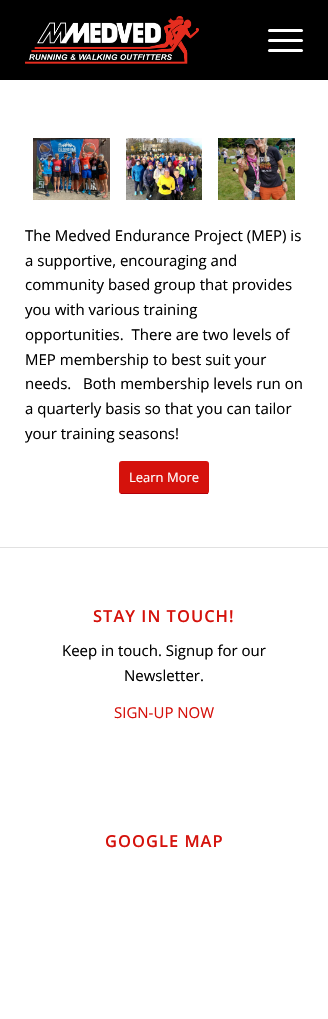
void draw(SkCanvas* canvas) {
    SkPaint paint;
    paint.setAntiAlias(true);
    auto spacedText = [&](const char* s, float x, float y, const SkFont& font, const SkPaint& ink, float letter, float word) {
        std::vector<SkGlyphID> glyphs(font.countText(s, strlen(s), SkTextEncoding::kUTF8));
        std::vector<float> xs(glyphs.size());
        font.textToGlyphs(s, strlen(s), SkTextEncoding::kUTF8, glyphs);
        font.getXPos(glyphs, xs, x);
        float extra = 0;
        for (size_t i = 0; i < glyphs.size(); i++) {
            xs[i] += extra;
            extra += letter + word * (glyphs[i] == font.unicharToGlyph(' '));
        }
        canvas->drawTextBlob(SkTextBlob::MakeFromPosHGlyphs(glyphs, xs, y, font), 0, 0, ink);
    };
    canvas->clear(0xFFFFFFFF);
    paint.setColor(0xFF000000);
    canvas->drawRect(SkRect::MakeXYWH(0, 0, 328, 80), paint);
    canvas->drawImageRect(SkImages::DeferredFromEncodedData(SkData::MakeFromFileName("img1.png")), SkRect::MakeXYWH(25, 16, 174, 48), SkSamplingOptions());
    paint.setColor(0xFFFFFFFF);
    canvas->drawRoundRect(SkRect::MakeXYWH(268, 39, 35, 3), 1.5f, 1.5f, paint);
    canvas->drawRoundRect(SkRect::MakeXYWH(268, 29, 35, 3), 1.5f, 1.5f, paint);
    canvas->drawRoundRect(SkRect::MakeXYWH(268, 49, 35, 3), 1.5f, 1.5f, paint);
    canvas->drawImageRect(SkImages::DeferredFromEncodedData(SkData::MakeFromFileName("img2.png")), SkRect::MakeXYWH(33, 138, 77, 62), SkSamplingOptions());
    canvas->drawImageRect(SkImages::DeferredFromEncodedData(SkData::MakeFromFileName("img3.png")), SkRect::MakeXYWH(126, 138, 76, 62), SkSamplingOptions());
    canvas->drawImageRect(SkImages::DeferredFromEncodedData(SkData::MakeFromFileName("img4.png")), SkRect::MakeXYWH(218, 138, 77, 62), SkSamplingOptions());
    SkFont font1(fontMgr->matchFamilyStyle("Open Sans", SkFontStyle::Normal()), 15);
    font1.setSubpixel(true);
    paint.setColor(0xFF000000);
    canvas->drawString("The Medved Endurance Project (MEP) is", 25, 241, font1, paint);
    canvas->drawString("a supportive, encouraging and", 25, 266, font1, paint);
    canvas->drawString("community based group that provides", 25, 290, font1, paint);
    canvas->drawString("you with various training", 25, 315, font1, paint);
    canvas->drawString("opportunities.  There are two levels of", 25, 340, font1, paint);
    canvas->drawString("MEP membership to best suit your", 25, 365, font1, paint);
    canvas->drawString("needs.   Both membership levels run on", 25, 389, font1, paint);
    canvas->drawString("a quarterly basis so that you can tailor", 25, 414, font1, paint);
    canvas->drawString("your training seasons!", 25, 439, font1, paint);
    paint.setColor(0xFFD5120C);
    canvas->drawRoundRect(SkRect::MakeXYWH(119, 461, 90, 33), 3, 3, paint);
    paint.setColor(0xFFB3000A);
    canvas->drawRect(SkRect::MakeXYWH(121, 493, 87, 1), paint);
    SkFont font2(fontMgr->matchFamilyStyle("Open Sans", SkFontStyle::Normal()), 13);
    font2.setSubpixel(true);
    paint.setColor(0xFFFFFFFF);
    canvas->drawString("Learn More", 129, 482, font2, paint);
    paint.setColor(0xFFE1E1E1);
    canvas->drawRect(SkRect::MakeXYWH(0, 547, 328, 1), paint);
    SkFont font3(fontMgr->matchFamilyStyle("Open Sans", SkFontStyle(600, SkFontStyle::kNormal_Width, SkFontStyle::kUpright_Slant)), 16.5f);
    font3.setSubpixel(true);
    paint.setColor(0xFFD5120C);
    spacedText("STAY IN TOUCH!", 93, 622, font3, paint, 1, 0);
    paint.setColor(0xFF000000);
    canvas->drawString("Keep in touch. Signup for our", 62, 656, font1, paint);
    canvas->drawString("Newsletter.", 124, 681, font1, paint);
    paint.setColor(0xFFD5120C);
    canvas->drawString("SIGN-UP NOW", 114, 718, font1, paint);
    spacedText("GOOGLE MAP", 105, 847, font3, paint, 1, 0);
}
